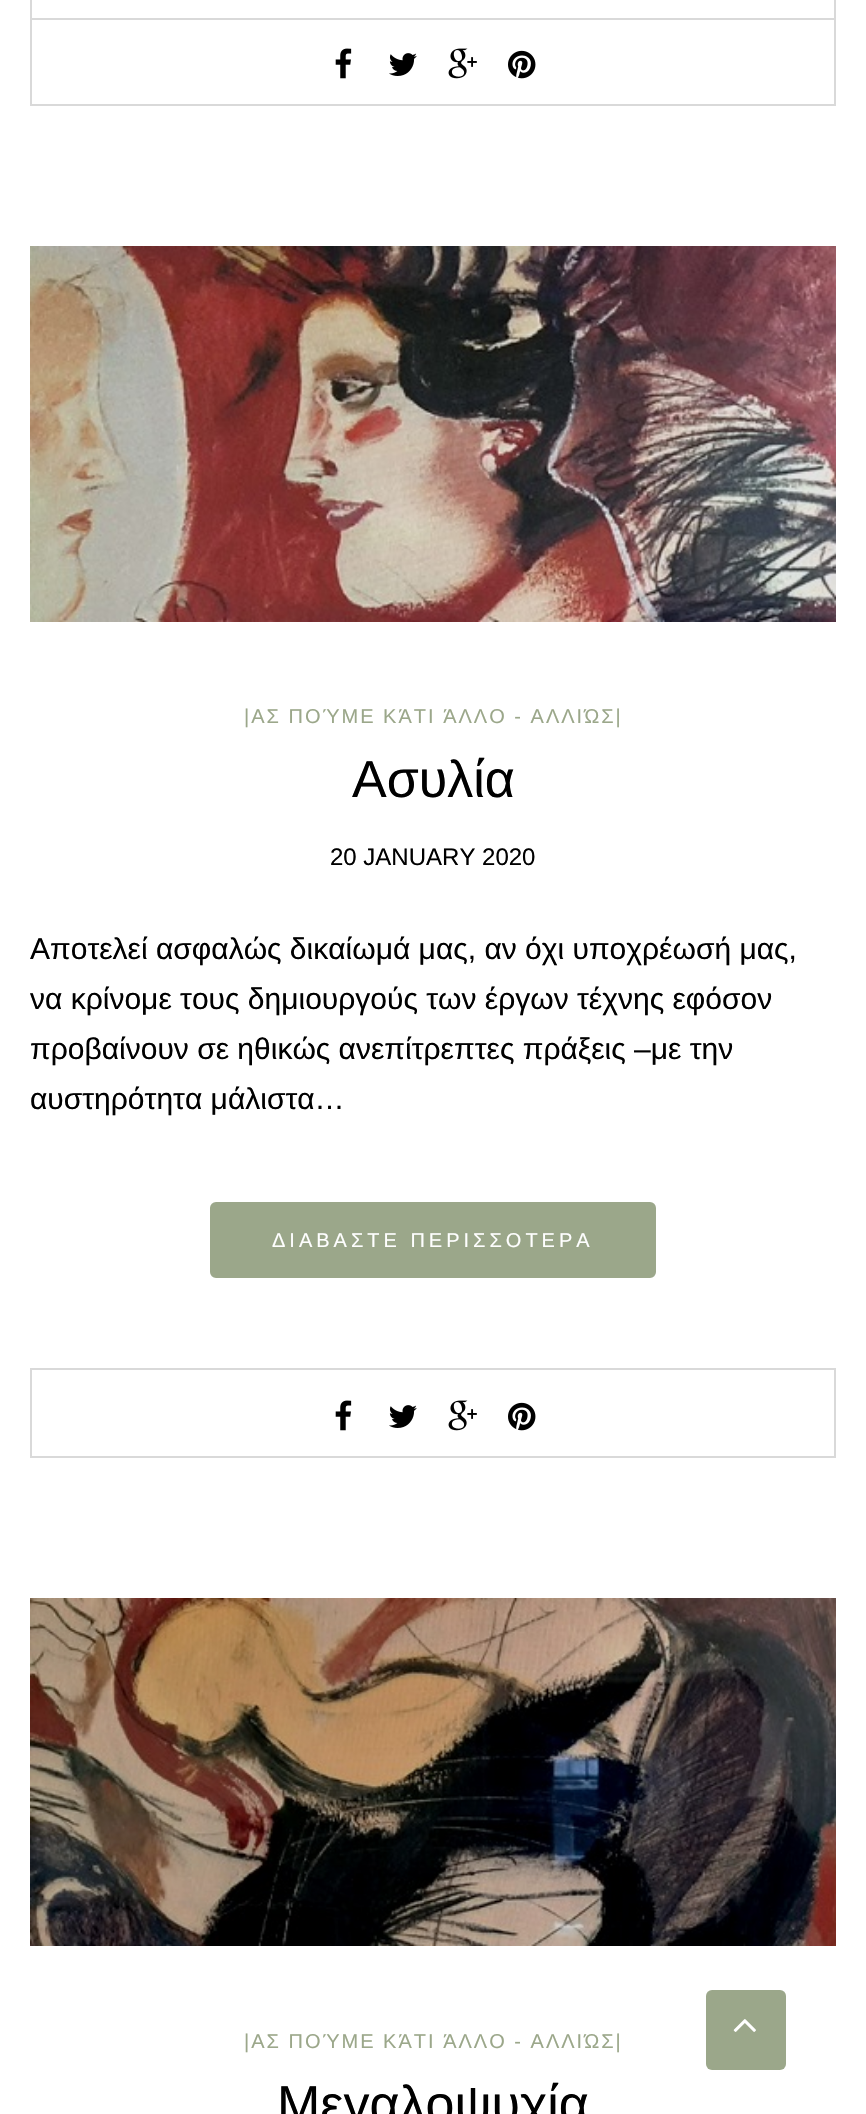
void draw(SkCanvas* canvas) {
    SkPaint paint;
    paint.setAntiAlias(true);
    auto spacedText = [&](const char* s, float x, float y, const SkFont& font, const SkPaint& ink, float letter, float word) {
        std::vector<SkGlyphID> glyphs(font.countText(s, strlen(s), SkTextEncoding::kUTF8));
        std::vector<float> xs(glyphs.size());
        font.textToGlyphs(s, strlen(s), SkTextEncoding::kUTF8, glyphs);
        font.getXPos(glyphs, xs, x);
        float extra = 0;
        for (size_t i = 0; i < glyphs.size(); i++) {
            xs[i] += extra;
            extra += letter + word * (glyphs[i] == font.unicharToGlyph(' '));
        }
        canvas->drawTextBlob(SkTextBlob::MakeFromPosHGlyphs(glyphs, xs, y, font), 0, 0, ink);
    };
    canvas->clear(0xFFFFFFFF);
    paint.setStyle(SkPaint::kStroke_Style);
    paint.setStrokeWidth(2);
    paint.setColor(0xFFD9D9D9);
    canvas->drawRect(SkRect::MakeXYWH(31, -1, 804, 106), paint);
    paint.setStyle(SkPaint::kFill_Style);
    canvas->drawRect(SkRect::MakeXYWH(32, 18, 802, 2), paint);
    canvas->drawImageRect(SkImages::DeferredFromEncodedData(SkData::MakeFromFileName("img1.png")), SkRect::MakeXYWH(335, 48, 17, 31), SkSamplingOptions());
    canvas->drawImageRect(SkImages::DeferredFromEncodedData(SkData::MakeFromFileName("img2.png")), SkRect::MakeXYWH(389, 53, 28, 23), SkSamplingOptions());
    canvas->drawImageRect(SkImages::DeferredFromEncodedData(SkData::MakeFromFileName("img3.png")), SkRect::MakeXYWH(448, 48, 29, 31), SkSamplingOptions());
    canvas->drawImageRect(SkImages::DeferredFromEncodedData(SkData::MakeFromFileName("img4.png")), SkRect::MakeXYWH(508, 50, 28, 29), SkSamplingOptions());
    canvas->drawImageRect(SkImages::DeferredFromEncodedData(SkData::MakeFromFileName("img5.png")), SkRect::MakeXYWH(30, 246, 806, 376), SkSamplingOptions());
    SkFont font1(fontMgr->matchFamilyStyle("Liberation Sans", SkFontStyle::Normal()), 20);
    font1.setSubpixel(true);
    paint.setColor(0xFF9BA78A);
    spacedText("|ΑΣ ΠΟΎΜΕ ΚΆΤΙ ΆΛΛΟ - ΑΛΛΙΏΣ|", 244, 723, font1, paint, 2, 0);
    SkFont font2(fontMgr->matchFamilyStyle("Liberation Sans", SkFontStyle::Normal()), 52);
    font2.setSubpixel(true);
    paint.setColor(0xFF000000);
    canvas->drawString("Ασυλία", 352, 797, font2, paint);
    SkFont font3(fontMgr->matchFamilyStyle("Liberation Sans", SkFontStyle::Normal()), 24);
    font3.setSubpixel(true);
    canvas->drawString("20 JANUARY 2020", 330, 865, font3, paint);
    SkFont font4(fontMgr->matchFamilyStyle("Liberation Sans", SkFontStyle::Normal()), 30);
    font4.setSubpixel(true);
    canvas->drawString("Αποτελεί ασφαλώς δικαίωμά μας, αν όχι υποχρέωσή μας,", 30, 959, font4, paint);
    canvas->drawString("να κρίνομε τους δημιουργούς των έργων τέχνης εφόσον", 30, 1009, font4, paint);
    canvas->drawString("προβαίνουν σε ηθικώς ανεπίτρεπτες πράξεις –με την", 30, 1059, font4, paint);
    canvas->drawString("αυστηρότητα μάλιστα…", 30, 1109, font4, paint);
    paint.setColor(0xFF9BA78A);
    canvas->drawRoundRect(SkRect::MakeXYWH(211, 1203, 444, 74), 5, 5, paint);
    paint.setStyle(SkPaint::kStroke_Style);
    canvas->drawRoundRect(SkRect::MakeXYWH(211, 1203, 444, 74), 5, 5, paint);
    paint.setStyle(SkPaint::kFill_Style);
    paint.setColor(0xFFFFFFFF);
    spacedText("ΔΙΑΒΑΣΤΕ ΠΕΡΙΣΣΟΤΕΡΑ", 272, 1247, font1, paint, 4, 0);
    paint.setStyle(SkPaint::kStroke_Style);
    paint.setColor(0xFFD9D9D9);
    canvas->drawRect(SkRect::MakeXYWH(31, 1369, 804, 88), paint);
    canvas->drawImageRect(SkImages::DeferredFromEncodedData(SkData::MakeFromFileName("img1.png")), SkRect::MakeXYWH(335, 1400, 17, 31), SkSamplingOptions());
    canvas->drawImageRect(SkImages::DeferredFromEncodedData(SkData::MakeFromFileName("img2.png")), SkRect::MakeXYWH(389, 1405, 28, 23), SkSamplingOptions());
    canvas->drawImageRect(SkImages::DeferredFromEncodedData(SkData::MakeFromFileName("img3.png")), SkRect::MakeXYWH(448, 1400, 29, 31), SkSamplingOptions());
    canvas->drawImageRect(SkImages::DeferredFromEncodedData(SkData::MakeFromFileName("img4.png")), SkRect::MakeXYWH(508, 1402, 28, 29), SkSamplingOptions());
    canvas->drawImageRect(SkImages::DeferredFromEncodedData(SkData::MakeFromFileName("img6.png")), SkRect::MakeXYWH(30, 1598, 806, 348), SkSamplingOptions());
    paint.setStyle(SkPaint::kFill_Style);
    paint.setColor(0xFF9BA78A);
    spacedText("|ΑΣ ΠΟΎΜΕ ΚΆΤΙ ΆΛΛΟ - ΑΛΛΙΏΣ|", 244, 2048, font1, paint, 2, 0);
    paint.setColor(0xFF000000);
    canvas->drawString("Μεγαλοψυχία", 277, 2122, font2, paint);
    paint.setColor(0xFF9BA78A);
    canvas->drawRoundRect(SkRect::MakeXYWH(706, 1990, 80, 80), 6, 6, paint);
    canvas->drawImageRect(SkImages::DeferredFromEncodedData(SkData::MakeFromFileName("img7.png")), SkRect::MakeXYWH(733, 2019, 23, 13), SkSamplingOptions());
}
